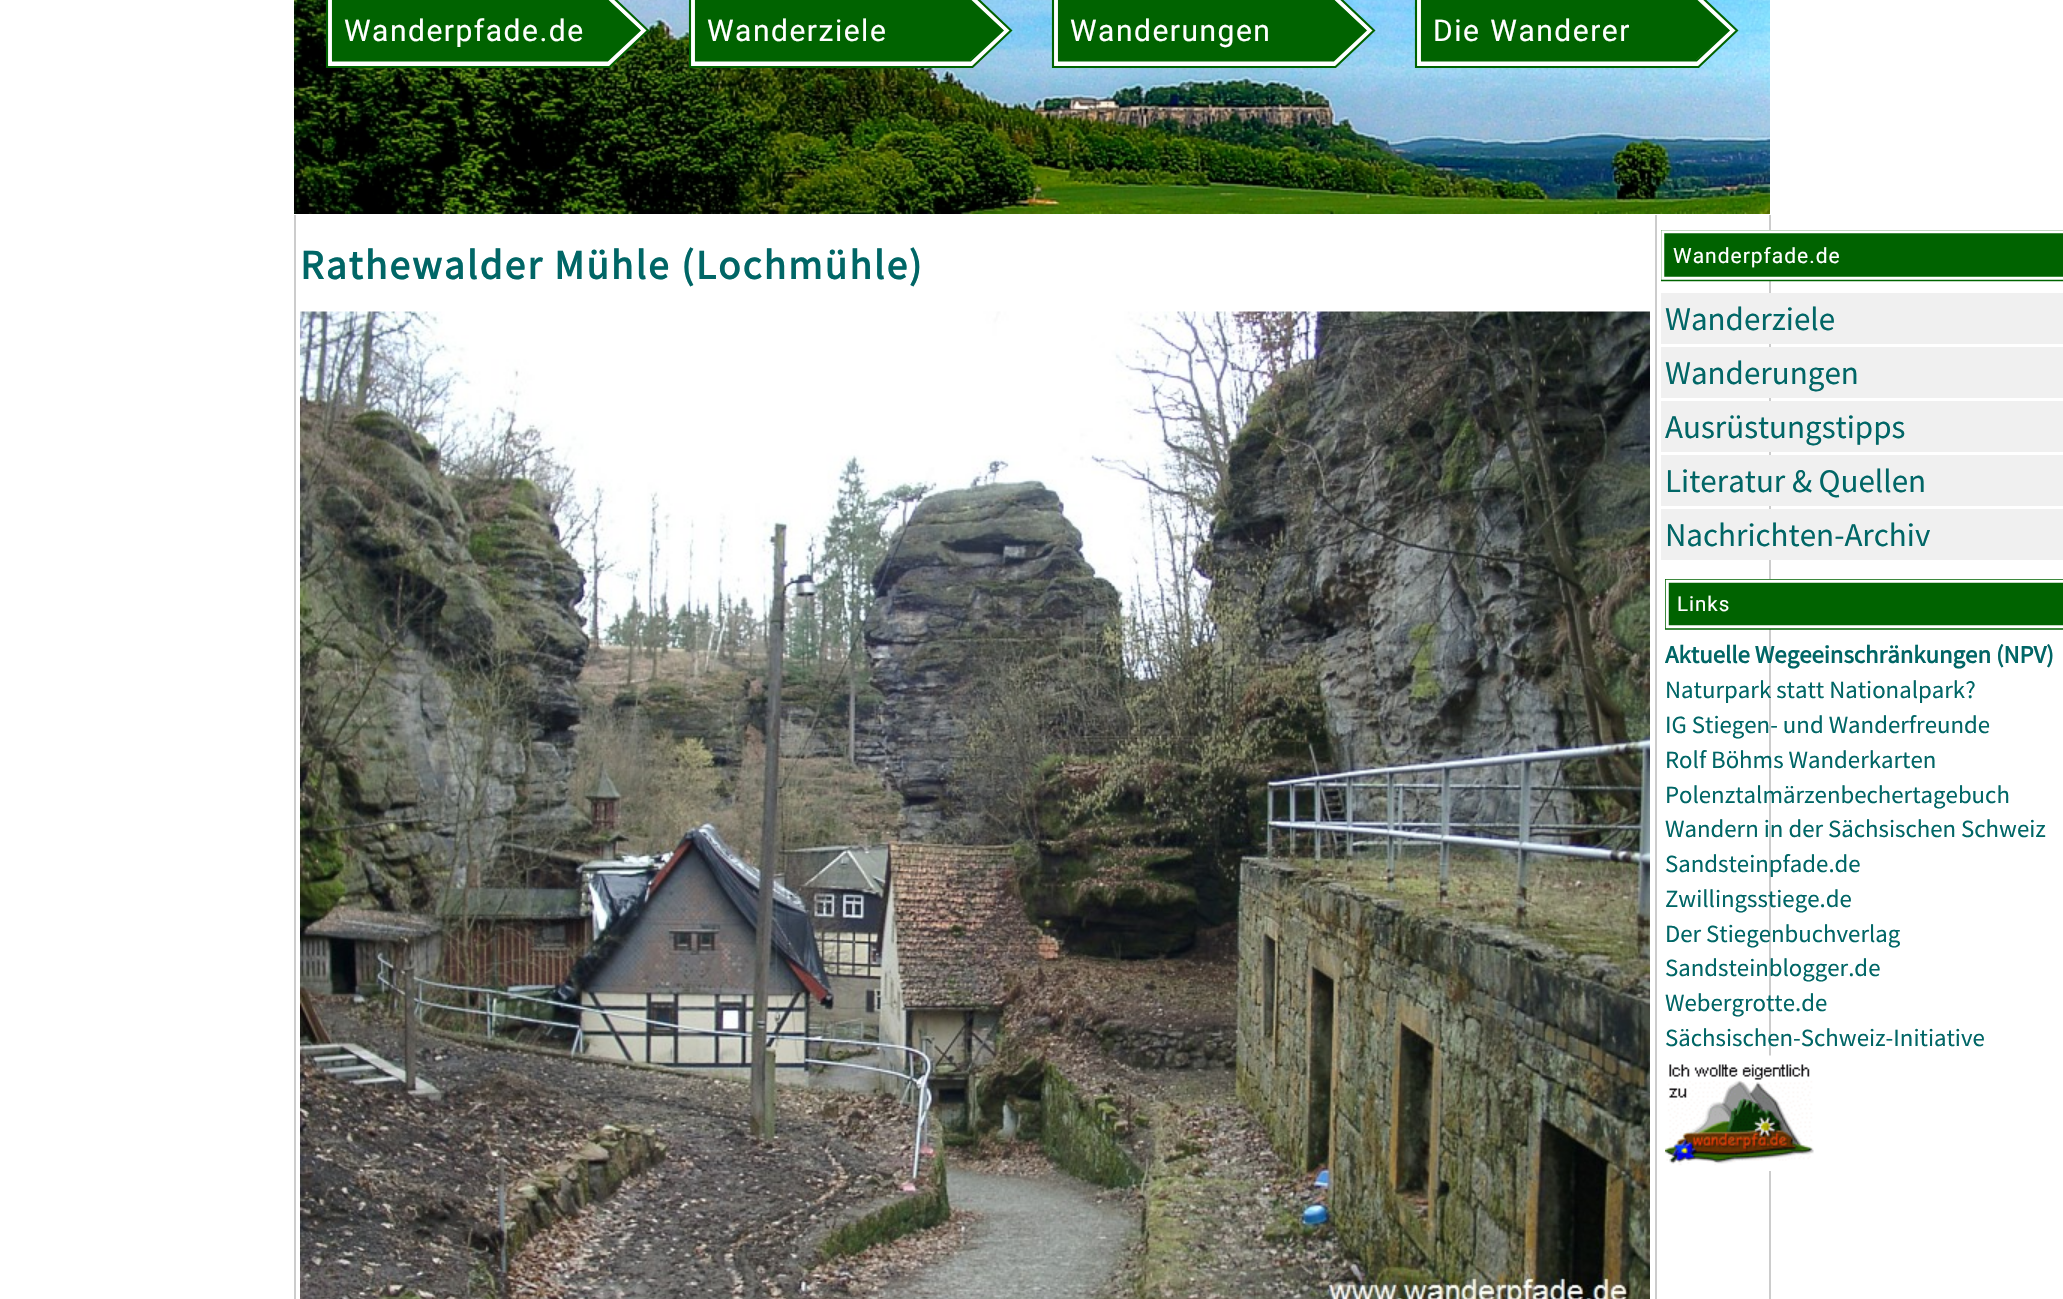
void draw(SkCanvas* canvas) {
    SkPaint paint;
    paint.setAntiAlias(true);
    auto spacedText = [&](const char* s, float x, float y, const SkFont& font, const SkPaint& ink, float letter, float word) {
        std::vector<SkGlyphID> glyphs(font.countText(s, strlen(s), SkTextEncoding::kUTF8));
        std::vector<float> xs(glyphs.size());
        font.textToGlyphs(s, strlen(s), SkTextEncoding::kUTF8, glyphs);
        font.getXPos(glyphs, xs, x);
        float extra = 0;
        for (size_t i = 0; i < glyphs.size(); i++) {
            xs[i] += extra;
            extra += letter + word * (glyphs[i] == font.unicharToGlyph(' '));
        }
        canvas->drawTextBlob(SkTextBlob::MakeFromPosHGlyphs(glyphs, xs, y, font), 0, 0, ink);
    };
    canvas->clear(0xFFFFFFFF);
    canvas->drawImageRect(SkImages::DeferredFromEncodedData(SkData::MakeFromFileName("img1.png")), SkRect::MakeXYWH(294, 0, 1476, 214), SkSamplingOptions());
    paint.setColor(0xFFFFFFFF);
    canvas->drawPath(SkPathBuilder().moveTo(327, -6).lineTo(610, -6).lineTo(648, 30).lineTo(610, 67).lineTo(327, 67).close().detach(), paint);
    paint.setStyle(SkPaint::kStroke_Style);
    paint.setStrokeWidth(2.1f);
    paint.setColor(0xFF006300);
    canvas->drawPath(SkPathBuilder().moveTo(327, -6).lineTo(609.5f, -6).lineTo(648, 30.5f).lineTo(609.5f, 67).lineTo(327, 67).close().detach(), paint);
    paint.setStyle(SkPaint::kFill_Style);
    canvas->drawPath(SkPathBuilder().moveTo(333, 0).lineTo(608, 0).lineTo(640, 30).lineTo(608, 60).lineTo(333, 60).close().detach(), paint);
    paint.setStyle(SkPaint::kStroke_Style);
    canvas->drawPath(SkPathBuilder().moveTo(333, 0.5f).lineTo(607.5f, 0.5f).lineTo(639.5f, 30.5f).lineTo(607.5f, 60.5f).lineTo(333, 60.5f).close().detach(), paint);
    SkFont font1(fontMgr->matchFamilyStyle("Roboto", SkFontStyle::Normal()), 30);
    font1.setSubpixel(true);
    paint.setStyle(SkPaint::kFill_Style);
    paint.setColor(0xFFFFFFFF);
    spacedText("Wanderpfade.de", 344, 41, font1, paint, 1.5f, 0);
    canvas->drawPath(SkPathBuilder().moveTo(690, -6).lineTo(973, -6).lineTo(1011, 30).lineTo(973, 67).lineTo(690, 67).close().detach(), paint);
    paint.setStyle(SkPaint::kStroke_Style);
    paint.setColor(0xFF006300);
    canvas->drawPath(SkPathBuilder().moveTo(690, -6).lineTo(972.5f, -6).lineTo(1011, 30.5f).lineTo(972.5f, 67).lineTo(690, 67).close().detach(), paint);
    paint.setStyle(SkPaint::kFill_Style);
    canvas->drawPath(SkPathBuilder().moveTo(696, 0).lineTo(970, 0).lineTo(1003, 30).lineTo(970, 60).lineTo(696, 60).close().detach(), paint);
    paint.setStyle(SkPaint::kStroke_Style);
    canvas->drawPath(SkPathBuilder().moveTo(696, 0.5f).lineTo(970.5f, 0.5f).lineTo(1002.5f, 30.5f).lineTo(970.5f, 60.5f).lineTo(696, 60.5f).close().detach(), paint);
    paint.setStyle(SkPaint::kFill_Style);
    paint.setColor(0xFFFFFFFF);
    spacedText("Wanderziele", 707, 41, font1, paint, 1.5f, 0);
    canvas->drawPath(SkPathBuilder().moveTo(1053, -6).lineTo(1336, -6).lineTo(1374, 30).lineTo(1336, 67).lineTo(1053, 67).close().detach(), paint);
    paint.setStyle(SkPaint::kStroke_Style);
    paint.setColor(0xFF006300);
    canvas->drawPath(SkPathBuilder().moveTo(1053, -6).lineTo(1335.5f, -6).lineTo(1374, 30.5f).lineTo(1335.5f, 67).lineTo(1053, 67).close().detach(), paint);
    paint.setStyle(SkPaint::kFill_Style);
    canvas->drawPath(SkPathBuilder().moveTo(1059, 0).lineTo(1334, 0).lineTo(1366, 30).lineTo(1334, 60).lineTo(1059, 60).close().detach(), paint);
    paint.setStyle(SkPaint::kStroke_Style);
    canvas->drawPath(SkPathBuilder().moveTo(1059, 0.5f).lineTo(1333.5f, 0.5f).lineTo(1365.5f, 30.5f).lineTo(1333.5f, 60.5f).lineTo(1059, 60.5f).close().detach(), paint);
    paint.setStyle(SkPaint::kFill_Style);
    paint.setColor(0xFFFFFFFF);
    spacedText("Wanderungen", 1070, 41, font1, paint, 1.5f, 0);
    canvas->drawPath(SkPathBuilder().moveTo(1416, -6).lineTo(1699, -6).lineTo(1737, 30).lineTo(1699, 67).lineTo(1416, 67).close().detach(), paint);
    paint.setStyle(SkPaint::kStroke_Style);
    paint.setColor(0xFF006300);
    canvas->drawPath(SkPathBuilder().moveTo(1416, -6).lineTo(1698.5f, -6).lineTo(1737, 30.5f).lineTo(1698.5f, 67).lineTo(1416, 67).close().detach(), paint);
    paint.setStyle(SkPaint::kFill_Style);
    canvas->drawPath(SkPathBuilder().moveTo(1422, 0).lineTo(1696, 0).lineTo(1729, 30).lineTo(1696, 60).lineTo(1422, 60).close().detach(), paint);
    paint.setStyle(SkPaint::kStroke_Style);
    canvas->drawPath(SkPathBuilder().moveTo(1422, 0.5f).lineTo(1696.5f, 0.5f).lineTo(1728.5f, 30.5f).lineTo(1696.5f, 60.5f).lineTo(1422, 60.5f).close().detach(), paint);
    paint.setStyle(SkPaint::kFill_Style);
    paint.setColor(0xFFFFFFFF);
    spacedText("Die Wanderer", 1433, 41, font1, paint, 1.5f, 1);
    paint.setColor(0xFFCCCCCC);
    canvas->drawRect(SkRect::MakeXYWH(1769, 215, 2, 1084), paint);
    canvas->drawRect(SkRect::MakeXYWH(1655, 215, 2, 1084), paint);
    canvas->drawRect(SkRect::MakeXYWH(294, 215, 2, 1084), paint);
    SkFont font2(fontMgr->matchFamilyStyle("Source Sans Pro", SkFontStyle::Bold()), 41.4f);
    font2.setSubpixel(true);
    paint.setColor(0xFF006666);
    spacedText("Rathewalder Mühle (Lochmühle)", 300, 279, font2, paint, 2.1f, 0);
    canvas->drawImageRect(SkImages::DeferredFromEncodedData(SkData::MakeFromFileName("img2.png")), SkRect::MakeXYWH(300, 311, 1350, 988), SkSamplingOptions());
    canvas->save();
    canvas->clipRect(SkRect::MakeXYWH(1661, 230, 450, 52));
    paint.setColor(0xFFFFFFFF);
    canvas->drawPath(SkPathBuilder(SkPathFillType::kEvenOdd).moveTo(1660, 230).lineTo(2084, 230).lineTo(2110, 255).lineTo(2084, 280).lineTo(1660, 280).close().detach(), paint);
    paint.setStyle(SkPaint::kStroke_Style);
    paint.setStrokeWidth(1.5f);
    paint.setColor(0xFF006300);
    canvas->drawPath(SkPathBuilder().moveTo(1660.5f, 229.5f).lineTo(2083.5f, 229.5f).lineTo(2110.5f, 255).lineTo(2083.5f, 280.5f).lineTo(1660.5f, 280.5f).close().detach(), paint);
    canvas->restore();
    paint.setStyle(SkPaint::kFill_Style);
    canvas->drawPath(SkPathBuilder(SkPathFillType::kEvenOdd).moveTo(1665, 234).lineTo(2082, 234).lineTo(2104, 255).lineTo(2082, 276).lineTo(1665, 276).close().detach(), paint);
    paint.setStyle(SkPaint::kStroke_Style);
    canvas->drawPath(SkPathBuilder().moveTo(1665, 234).lineTo(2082, 234).lineTo(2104.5f, 255).lineTo(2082, 276).lineTo(1665, 276).close().detach(), paint);
    SkFont font3(fontMgr->matchFamilyStyle("Roboto", SkFontStyle::Normal()), 21);
    font3.setSubpixel(true);
    paint.setStyle(SkPaint::kFill_Style);
    paint.setColor(0xFFFFFFFF);
    spacedText("Wanderpfade.de", 1673, 263, font3, paint, 1, 0);
    paint.setColor(0xFFF0F0F0);
    canvas->drawRect(SkRect::MakeXYWH(1661, 293, 402, 51), paint);
    SkFont font4(fontMgr->matchFamilyStyle("Source Sans Pro", SkFontStyle::Normal()), 33);
    font4.setSubpixel(true);
    paint.setColor(0xFF006666);
    canvas->drawString("Wanderziele", 1665, 330, font4, paint);
    paint.setColor(0xFFF0F0F0);
    canvas->drawRect(SkRect::MakeXYWH(1661, 347, 402, 51), paint);
    paint.setColor(0xFF006666);
    canvas->drawString("Wanderungen", 1665, 384, font4, paint);
    paint.setColor(0xFFF0F0F0);
    canvas->drawRect(SkRect::MakeXYWH(1661, 401, 402, 51), paint);
    paint.setColor(0xFF006666);
    canvas->drawString("Ausrüstungstipps", 1665, 438, font4, paint);
    paint.setColor(0xFFF0F0F0);
    canvas->drawRect(SkRect::MakeXYWH(1661, 455, 402, 51), paint);
    paint.setColor(0xFF006666);
    canvas->drawString("Literatur & Quellen", 1665, 492, font4, paint);
    paint.setColor(0xFFF0F0F0);
    canvas->drawRect(SkRect::MakeXYWH(1661, 509, 402, 51), paint);
    paint.setColor(0xFF006666);
    canvas->drawString("Nachrichten-Archiv", 1665, 546, font4, paint);
    paint.setColor(0xFFFFFFFF);
    canvas->drawPath(SkPathBuilder(SkPathFillType::kEvenOdd).moveTo(1665, 579).lineTo(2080, 579).lineTo(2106, 604).lineTo(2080, 629).lineTo(1665, 629).close().detach(), paint);
    canvas->save();
    canvas->clipRect(SkRect::MakeXYWH(1665, 579, 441, 51));
    paint.setStyle(SkPaint::kStroke_Style);
    paint.setColor(0xFF006300);
    canvas->drawPath(SkPathBuilder().moveTo(1665, 579).lineTo(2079.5f, 579).lineTo(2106, 604).lineTo(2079.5f, 629).lineTo(1665, 629).close().detach(), paint);
    canvas->restore();
    paint.setStyle(SkPaint::kFill_Style);
    canvas->drawPath(SkPathBuilder(SkPathFillType::kEvenOdd).moveTo(1669, 583).lineTo(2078, 583).lineTo(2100, 604).lineTo(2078, 625).lineTo(1669, 625).close().detach(), paint);
    paint.setStyle(SkPaint::kStroke_Style);
    canvas->drawPath(SkPathBuilder().moveTo(1669.5f, 583.5f).lineTo(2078, 583.5f).lineTo(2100, 604).lineTo(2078, 624.5f).lineTo(1669.5f, 624.5f).close().detach(), paint);
    SkFont font5(fontMgr->matchFamilyStyle("Roboto", SkFontStyle::Normal()), 20.5f);
    font5.setSubpixel(true);
    paint.setStyle(SkPaint::kFill_Style);
    paint.setColor(0xFFFFFFFF);
    spacedText("Links", 1677, 611, font5, paint, 1, 0);
    SkFont font6(fontMgr->matchFamilyStyle("Source Sans Pro", SkFontStyle::Bold()), 24.8f);
    font6.setSubpixel(true);
    paint.setColor(0xFF006666);
    canvas->drawString("Aktuelle Wegeeinschränkungen (NPV)", 1665, 663, font6, paint);
    SkFont font7(fontMgr->matchFamilyStyle("Source Sans Pro", SkFontStyle::Normal()), 24.8f);
    font7.setSubpixel(true);
    canvas->drawString("Naturpark statt Nationalpark?", 1665, 698, font7, paint);
    canvas->drawString("IG Stiegen- und Wanderfreunde", 1665, 733, font7, paint);
    canvas->drawString("Rolf Böhms Wanderkarten", 1665, 768, font7, paint);
    canvas->drawString("Polenztalmärzenbechertagebuch", 1665, 803, font7, paint);
    canvas->drawString("Wandern in der Sächsischen Schweiz", 1665, 837, font7, paint);
    canvas->drawString("Sandsteinpfade.de", 1665, 872, font7, paint);
    canvas->drawString("Zwillingsstiege.de", 1665, 907, font7, paint);
    canvas->drawString("Der Stiegenbuchverlag", 1665, 942, font7, paint);
    canvas->drawString("Sandsteinblogger.de", 1665, 976, font7, paint);
    canvas->drawString("Webergrotte.de", 1665, 1011, font7, paint);
    canvas->drawString("Sächsischen-Schweiz-Initiative", 1665, 1046, font7, paint);
    canvas->drawImageRect(SkImages::DeferredFromEncodedData(SkData::MakeFromFileName("img3.png")), SkRect::MakeXYWH(1665, 1055, 149, 116), SkSamplingOptions());
}
